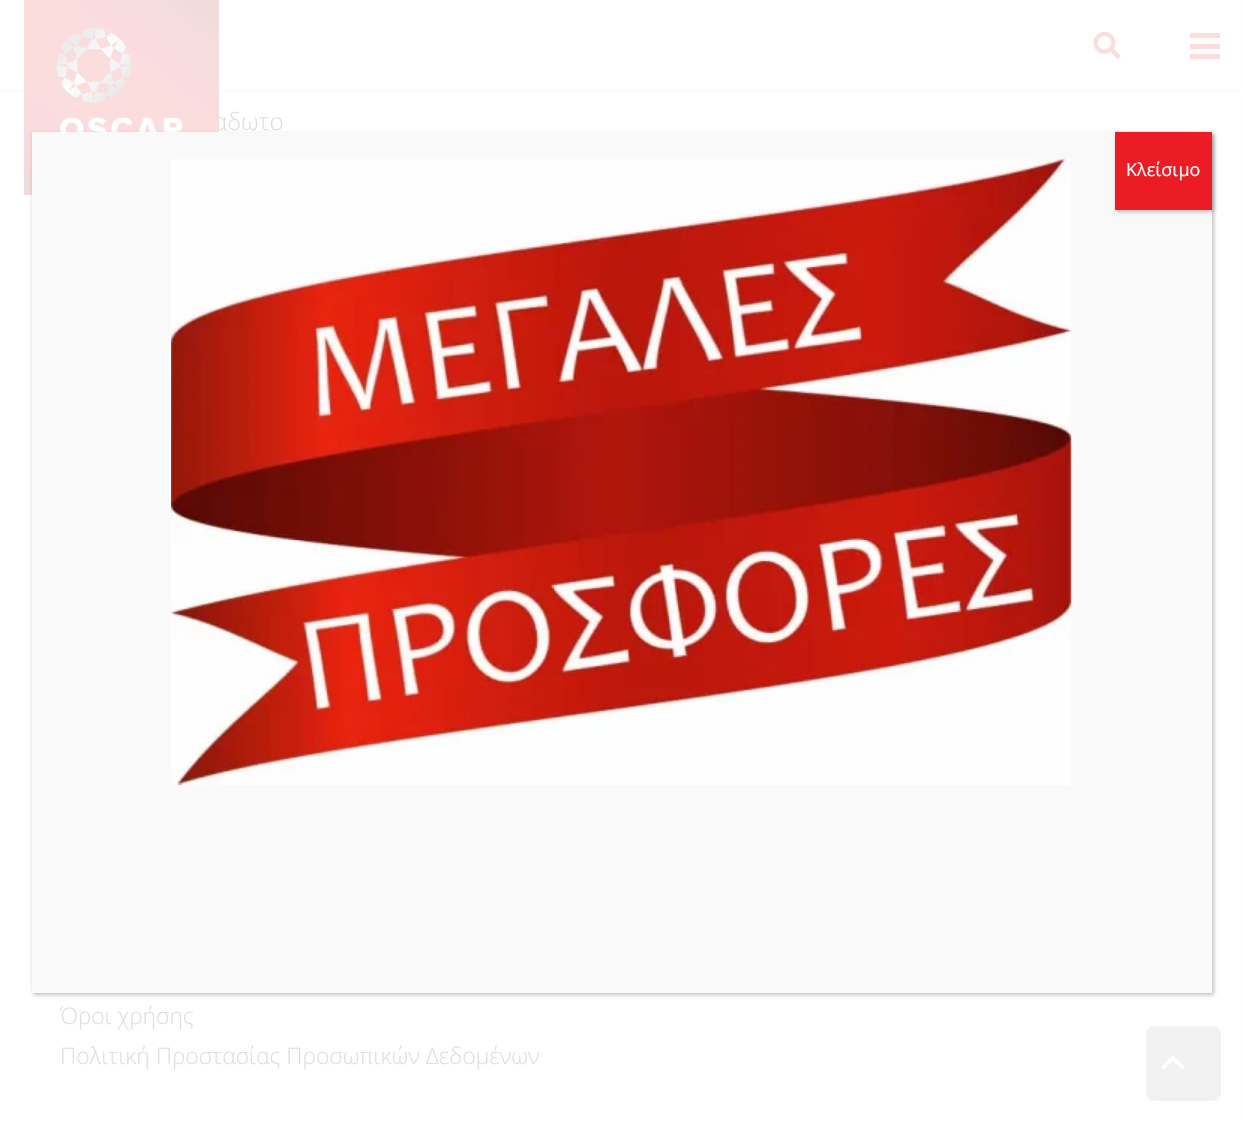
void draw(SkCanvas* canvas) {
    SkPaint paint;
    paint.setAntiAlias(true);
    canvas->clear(0xFFFFFFFF);
    paint.setColor(0xFFFCFCFC);
    canvas->drawPath(SkPathBuilder().moveTo(0, 90).lineTo(0, 92).lineTo(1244, 92).lineTo(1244, 2).lineTo(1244, 90).close().detach(), paint);
    SkFont font1(fontMgr->matchFamilyStyle("Open Sans", SkFontStyle(300, SkFontStyle::kNormal_Width, SkFontStyle::kUpright_Slant)), 24);
    font1.setSubpixel(true);
    paint.setColor(0xFFDFDFE1);
    canvas->drawString("αδωτο", 213, 130, font1, paint);
    canvas->drawImageRect(SkImages::DeferredFromEncodedData(SkData::MakeFromFileName("img1.png")), SkRect::MakeXYWH(24, 0, 195, 195), SkSamplingOptions());
    canvas->drawImageRect(SkImages::DeferredFromEncodedData(SkData::MakeFromFileName("img2.png")), SkRect::MakeXYWH(1093, 31, 28, 28), SkSamplingOptions());
    paint.setColor(0xFFFBDDDE);
    canvas->drawRect(SkRect::MakeXYWH(1190, 44, 30, 5), paint);
    canvas->drawRect(SkRect::MakeXYWH(1190, 33, 30, 5), paint);
    canvas->drawRect(SkRect::MakeXYWH(1190, 54, 30, 5), paint);
    paint.setColor(0x14D9D9D9);
    canvas->drawPath(SkPathBuilder().moveTo(1242, 0).lineTo(1242, 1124).lineTo(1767, 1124).lineTo(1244, 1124).lineTo(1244, 0).close().detach(), paint);
    paint.setColor(0x3B020202);
    paint.setMaskFilter(SkMaskFilter::MakeBlur(kNormal_SkBlurStyle, 2));
    canvas->drawRect(SkRect::MakeXYWH(33, 134, 1181, 861), paint);
    paint.setMaskFilter(nullptr);
    paint.setColor(0xFFF9F9F9);
    canvas->drawRect(SkRect::MakeXYWH(32, 132, 1180, 861), paint);
    canvas->drawImageRect(SkImages::DeferredFromEncodedData(SkData::MakeFromFileName("img3.png")), SkRect::MakeXYWH(171, 158, 901, 627), SkSamplingOptions());
    paint.setColor(0x3B020202);
    paint.setMaskFilter(SkMaskFilter::MakeBlur(kNormal_SkBlurStyle, 2));
    canvas->drawRect(SkRect::MakeXYWH(1116, 134, 98, 78), paint);
    paint.setMaskFilter(nullptr);
    paint.setColor(0xFFEB1C24);
    canvas->drawRect(SkRect::MakeXYWH(1115, 132, 97, 78), paint);
    SkFont font2(fontMgr->matchFamilyStyle("Open Sans", SkFontStyle::Normal()), 18);
    font2.setSubpixel(true);
    paint.setColor(0xFFFFFFFF);
    canvas->drawString("Κλείσιμο", 1126, 176, font2, paint);
    SkFont font3(fontMgr->matchFamilyStyle("Open Sans", SkFontStyle(300, SkFontStyle::kNormal_Width, SkFontStyle::kUpright_Slant)), 22.8f);
    font3.setSubpixel(true);
    paint.setColor(0xFFDFDFE1);
    canvas->drawString("Όροι χρήσης", 60, 1024, font3, paint);
    canvas->drawString("Πολιτική Προστασίας Προσωπικών Δεδομένων", 60, 1064, font3, paint);
    paint.setColor(0xFFF2F2F2);
    canvas->drawRoundRect(SkRect::MakeXYWH(1146, 1026, 75, 75), 8, 8, paint);
    canvas->drawImageRect(SkImages::DeferredFromEncodedData(SkData::MakeFromFileName("img4.png")), SkRect::MakeXYWH(1161, 1055, 24, 15), SkSamplingOptions());
}
